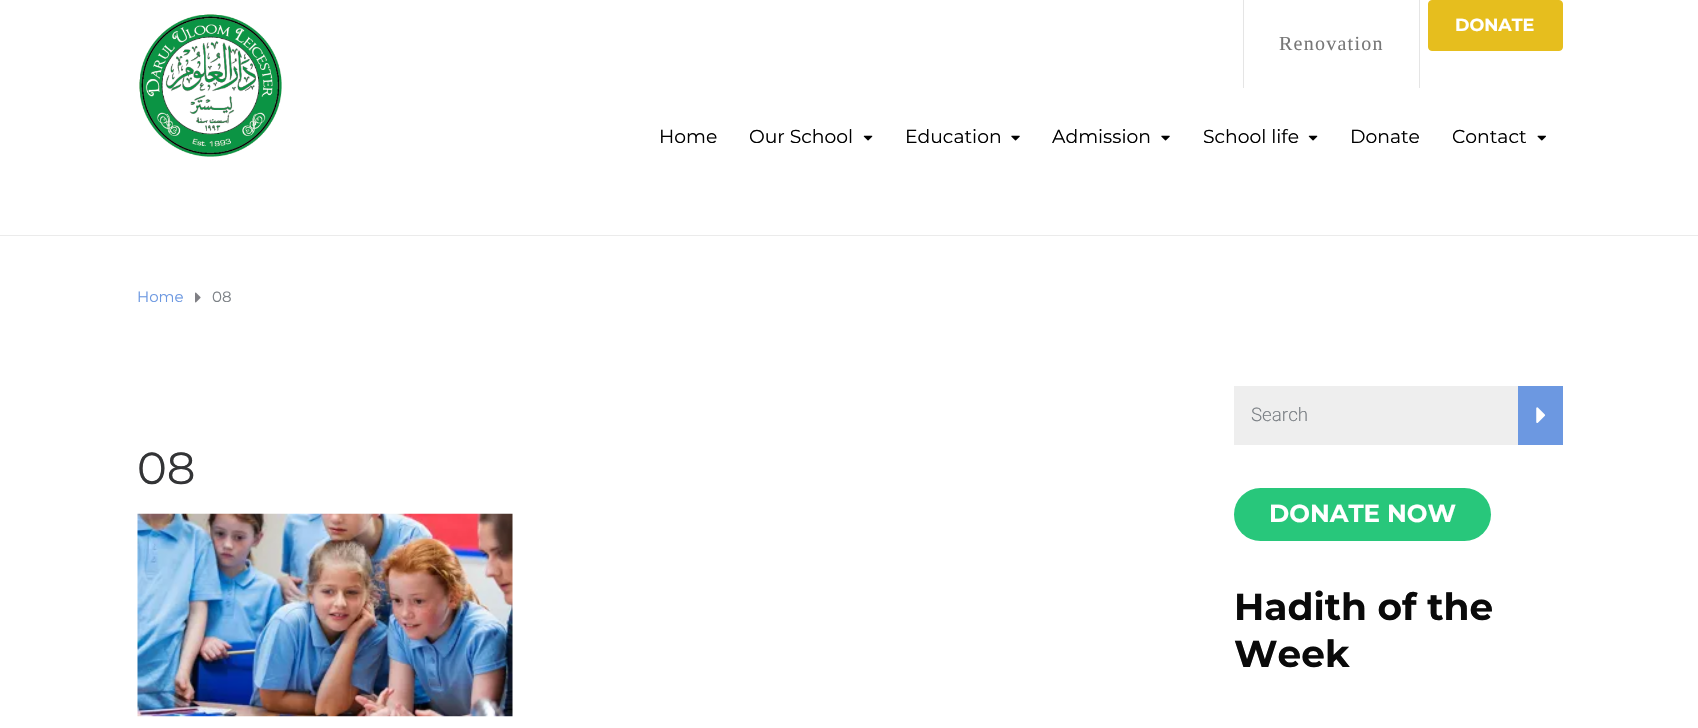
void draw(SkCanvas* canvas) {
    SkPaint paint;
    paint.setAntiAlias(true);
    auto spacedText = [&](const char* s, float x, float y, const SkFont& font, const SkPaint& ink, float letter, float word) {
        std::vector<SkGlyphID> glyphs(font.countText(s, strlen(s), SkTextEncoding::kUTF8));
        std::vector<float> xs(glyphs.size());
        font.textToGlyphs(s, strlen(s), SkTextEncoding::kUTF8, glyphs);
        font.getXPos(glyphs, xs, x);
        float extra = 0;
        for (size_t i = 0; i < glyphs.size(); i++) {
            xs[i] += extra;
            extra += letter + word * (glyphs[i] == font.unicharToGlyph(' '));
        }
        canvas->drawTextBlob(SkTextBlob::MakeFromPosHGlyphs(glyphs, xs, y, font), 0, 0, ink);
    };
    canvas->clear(0xFFFFFFFF);
    paint.setColor(0xFFEBEBEB);
    canvas->drawRect(SkRect::MakeXYWH(0, 235, 1698, 1), paint);
    canvas->drawImageRect(SkImages::DeferredFromEncodedData(SkData::MakeFromFileName("img1.png")), SkRect::MakeXYWH(139, 14, 143, 143), SkSamplingOptions());
    paint.setColor(0xFFE6BE1E);
    canvas->drawRoundRect(SkRect::MakeXYWH(1428.5f, 0.5f, 134, 50), 3.5f, 3.5f, paint);
    paint.setStyle(SkPaint::kStroke_Style);
    paint.setStrokeWidth(1);
    canvas->drawRoundRect(SkRect::MakeXYWH(1428.5f, 0.5f, 134, 50), 3.5f, 3.5f, paint);
    SkFont font1(fontMgr->matchFamilyStyle("Montserrat", SkFontStyle::Bold()), 17.5f);
    font1.setSubpixel(true);
    paint.setStyle(SkPaint::kFill_Style);
    paint.setColor(0xFFFFFFFF);
    canvas->drawString("DONATE", 1455, 31, font1, paint);
    paint.setColor(0xFFE5E5E5);
    canvas->drawRect(SkRect::MakeXYWH(1419, 0, 1, 88), paint);
    canvas->drawRect(SkRect::MakeXYWH(1243, 0, 1, 88), paint);
    SkFont font2(fontMgr->matchFamilyStyle("Liberation Serif", SkFontStyle::Normal()), 20);
    font2.setSubpixel(true);
    paint.setColor(0xFF777777);
    spacedText("Renovation", 1279, 50, font2, paint, 1.25f, 0);
    SkFont font3(fontMgr->matchFamilyStyle("Montserrat", SkFontStyle::Normal()), 18.75f);
    font3.setSubpixel(true);
    paint.setColor(0xFF000000);
    canvas->drawString("Home", 659, 143, font3, paint);
    canvas->drawString("Our School", 749, 143, font3, paint);
    canvas->drawImageRect(SkImages::DeferredFromEncodedData(SkData::MakeFromFileName("img2.png")), SkRect::MakeXYWH(863, 135, 10, 6), SkSamplingOptions());
    canvas->drawString("Education", 905, 143, font3, paint);
    canvas->drawImageRect(SkImages::DeferredFromEncodedData(SkData::MakeFromFileName("img3.png")), SkRect::MakeXYWH(1011, 135, 9, 6), SkSamplingOptions());
    canvas->drawString("Admission", 1052, 143, font3, paint);
    canvas->drawImageRect(SkImages::DeferredFromEncodedData(SkData::MakeFromFileName("img3.png")), SkRect::MakeXYWH(1161, 135, 9, 6), SkSamplingOptions());
    canvas->drawString("School life", 1203, 143, font3, paint);
    canvas->drawImageRect(SkImages::DeferredFromEncodedData(SkData::MakeFromFileName("img2.png")), SkRect::MakeXYWH(1308, 135, 10, 6), SkSamplingOptions());
    canvas->drawString("Donate", 1350, 143, font3, paint);
    canvas->drawString("Contact", 1452, 143, font3, paint);
    canvas->drawImageRect(SkImages::DeferredFromEncodedData(SkData::MakeFromFileName("img4.png")), SkRect::MakeXYWH(1537, 135, 9, 6), SkSamplingOptions());
    SkFont font4(fontMgr->matchFamilyStyle("Montserrat", SkFontStyle::Normal()), 15);
    font4.setSubpixel(true);
    paint.setColor(0xFF6C98E1);
    canvas->drawString("Home", 137, 302, font4, paint);
    canvas->drawImageRect(SkImages::DeferredFromEncodedData(SkData::MakeFromFileName("img5.png")), SkRect::MakeXYWH(195, 292, 6, 11), SkSamplingOptions());
    paint.setColor(0xFF7B8085);
    canvas->drawString("08", 212, 302, font4, paint);
    SkFont font5(fontMgr->matchFamilyStyle("Montserrat", SkFontStyle::Normal()), 45);
    font5.setSubpixel(true);
    paint.setColor(0xFF333436);
    canvas->drawString("08", 137, 484, font5, paint);
    canvas->drawImageRect(SkImages::DeferredFromEncodedData(SkData::MakeFromFileName("img6.png")), SkRect::MakeXYWH(137, 513, 376, 204), SkSamplingOptions());
    paint.setColor(0xFFEEEEEE);
    canvas->drawRect(SkRect::MakeXYWH(1234, 386, 284, 59), paint);
    SkFont font6(fontMgr->matchFamilyStyle("Roboto", SkFontStyle(300, SkFontStyle::kNormal_Width, SkFontStyle::kUpright_Slant)), 18.75f);
    font6.setSubpixel(true);
    paint.setColor(0xFF7B8085);
    canvas->drawString("Search", 1251, 421, font6, paint);
    paint.setColor(0xFF6C98E1);
    canvas->drawRect(SkRect::MakeXYWH(1518, 386, 45, 59), paint);
    canvas->drawImageRect(SkImages::DeferredFromEncodedData(SkData::MakeFromFileName("img7.png")), SkRect::MakeXYWH(1536, 407, 10, 16), SkSamplingOptions());
    paint.setColor(0xFF28C77B);
    canvas->drawRoundRect(SkRect::MakeXYWH(1234, 488, 257, 53), 26.5f, 26.5f, paint);
    SkFont font7(fontMgr->matchFamilyStyle("Montserrat", SkFontStyle::Bold()), 24.5f);
    font7.setSubpixel(true);
    paint.setColor(0xFFFFFFFF);
    canvas->drawString("DONATE NOW", 1269, 522, font7, paint);
    SkFont font8(fontMgr->matchFamilyStyle("Montserrat", SkFontStyle::Bold()), 37.5f);
    font8.setSubpixel(true);
    paint.setColor(0xFF0A0A0A);
    canvas->drawString("Hadith of the", 1234, 620, font8, paint);
    canvas->drawString("Week", 1234, 667, font8, paint);
}
